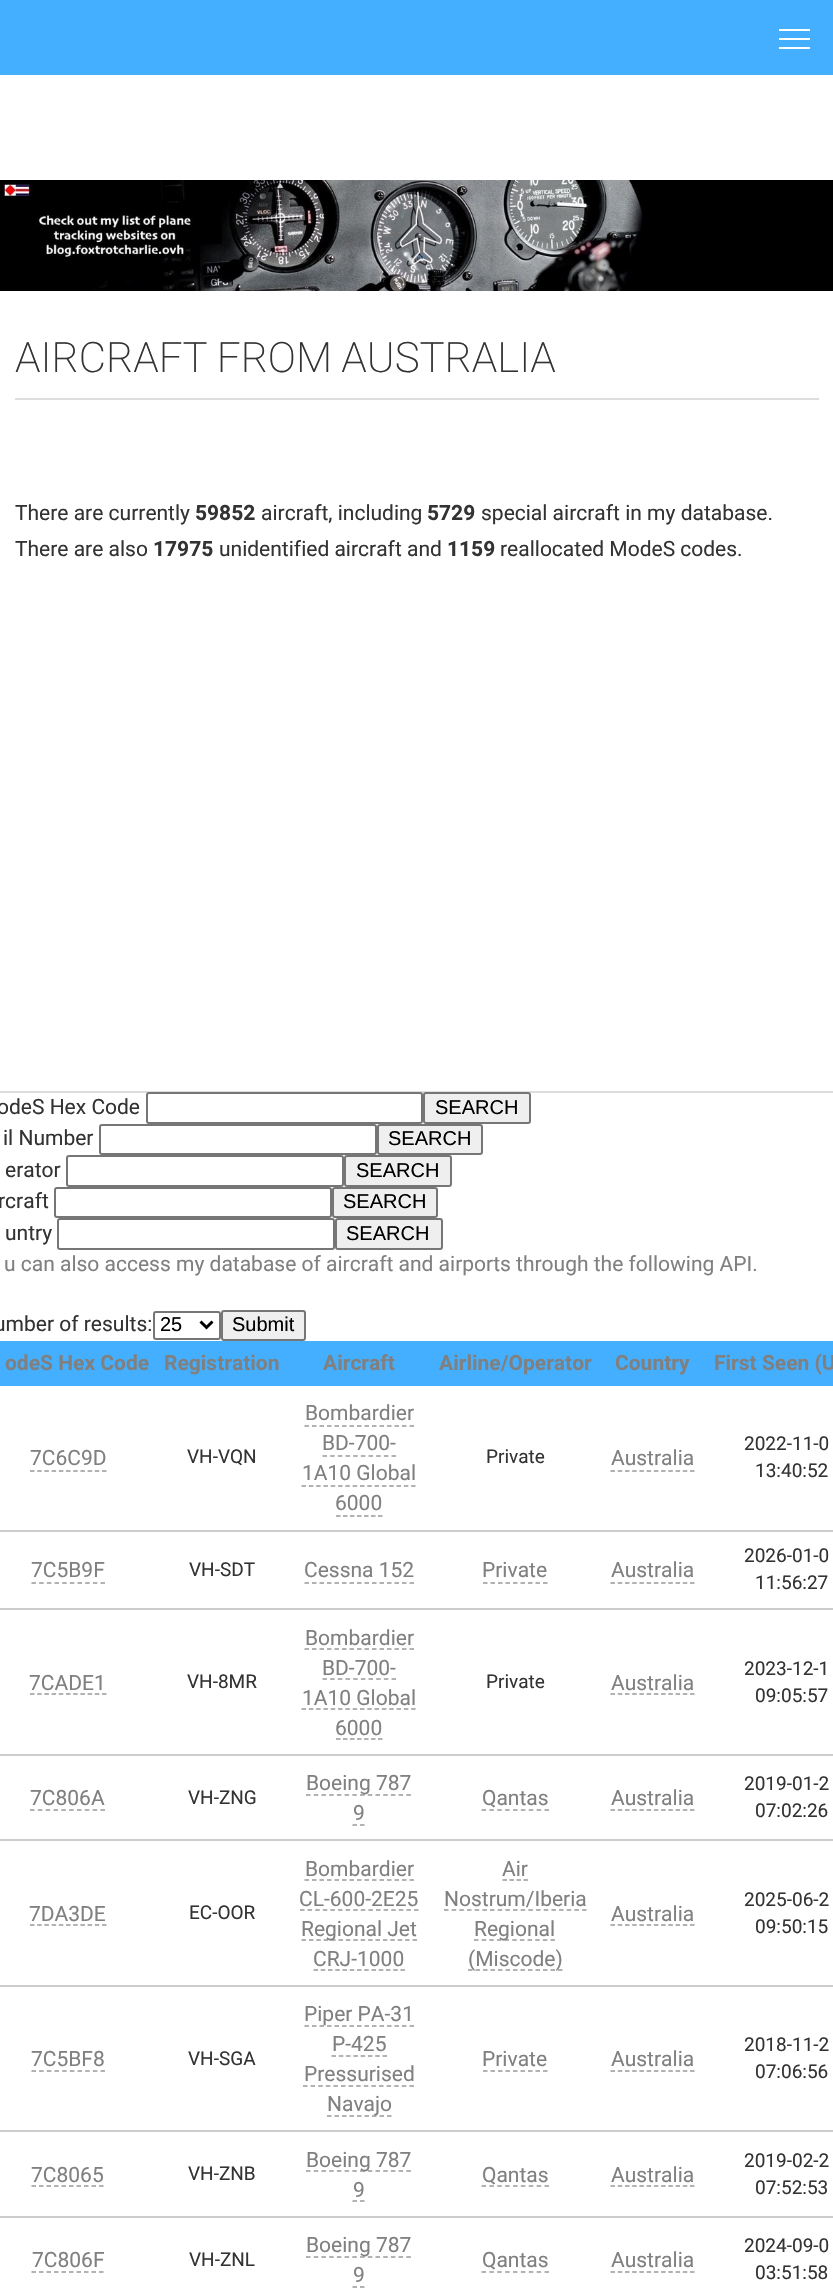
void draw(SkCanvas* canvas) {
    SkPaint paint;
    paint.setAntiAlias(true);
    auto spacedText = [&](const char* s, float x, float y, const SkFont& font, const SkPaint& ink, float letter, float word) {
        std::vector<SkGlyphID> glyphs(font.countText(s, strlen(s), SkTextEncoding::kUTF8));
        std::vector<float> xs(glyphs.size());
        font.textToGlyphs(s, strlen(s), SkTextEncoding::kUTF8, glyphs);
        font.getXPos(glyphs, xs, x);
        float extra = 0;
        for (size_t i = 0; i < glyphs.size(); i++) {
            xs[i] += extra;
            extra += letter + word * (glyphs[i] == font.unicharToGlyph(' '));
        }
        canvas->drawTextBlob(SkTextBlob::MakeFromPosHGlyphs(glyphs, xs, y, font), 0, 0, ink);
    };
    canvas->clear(0xFFFFFFFF);
    paint.setColor(0xFF44AFFF);
    canvas->drawRect(SkRect::MakeXYWH(0, 0, 833, 75), paint);
    paint.setColor(0xFFFFFFFF);
    canvas->drawRect(SkRect::MakeXYWH(779, 29, 31, 2), paint);
    canvas->drawRect(SkRect::MakeXYWH(779, 38, 31, 2), paint);
    canvas->drawRect(SkRect::MakeXYWH(779, 47, 31, 2), paint);
    canvas->drawImageRect(SkImages::DeferredFromEncodedData(SkData::MakeFromFileName("img1.png")), SkRect::MakeXYWH(0, 180, 833, 111), SkSamplingOptions());
    paint.setColor(0xFFDDDDDD);
    canvas->drawRect(SkRect::MakeXYWH(15, 398, 804, 2), paint);
    SkFont font1(fontMgr->matchFamilyStyle("Roboto", SkFontStyle(200, SkFontStyle::kNormal_Width, SkFontStyle::kUpright_Slant)), 42);
    font1.setSubpixel(true);
    paint.setColor(0xFF333333);
    spacedText("AIRCRAFT FROM AUSTRALIA", 15, 372, font1, paint, 0, -1);
    SkFont font2(fontMgr->matchFamilyStyle("Roboto", SkFontStyle::Normal()), 21);
    font2.setSubpixel(true);
    canvas->drawString("There are currently", 15, 520, font2, paint);
    SkFont font3(fontMgr->matchFamilyStyle("Roboto", SkFontStyle::Bold()), 21);
    font3.setSubpixel(true);
    canvas->drawString("59852", 195, 520, font3, paint);
    canvas->drawString("aircraft, including", 261, 520, font2, paint);
    canvas->drawString("5729", 427, 520, font3, paint);
    canvas->drawString("special aircraft in my database.", 481, 520, font2, paint);
    canvas->drawString("There are also", 15, 556, font2, paint);
    canvas->drawString("17975", 153, 556, font3, paint);
    canvas->drawString("unidentified aircraft and", 219, 556, font2, paint);
    canvas->drawString("1159", 447, 556, font3, paint);
    canvas->drawString("reallocated ModeS codes.", 500, 556, font2, paint);
    paint.setColor(0xFFDDDDDD);
    canvas->drawRect(SkRect::MakeXYWH(0, 1091, 833, 2), paint);
    paint.setColor(0xFF333333);
    canvas->drawString("odeS Hex Code", -3, 1114, font2, paint);
    paint.setColor(0xFFFFFFFF);
    canvas->drawRoundRect(SkRect::MakeXYWH(147, 1093, 275, 30), 2, 2, paint);
    paint.setStyle(SkPaint::kStroke_Style);
    paint.setStrokeWidth(2);
    paint.setColor(0xFF767676);
    canvas->drawRoundRect(SkRect::MakeXYWH(147, 1093, 275, 30), 2, 2, paint);
    paint.setStyle(SkPaint::kFill_Style);
    paint.setColor(0xFFEFEFEF);
    canvas->drawRoundRect(SkRect::MakeXYWH(424, 1093, 106, 30), 2, 2, paint);
    paint.setStyle(SkPaint::kStroke_Style);
    paint.setColor(0xFF767676);
    canvas->drawRoundRect(SkRect::MakeXYWH(424, 1093, 106, 30), 2, 2, paint);
    SkFont font4(fontMgr->matchFamilyStyle("Liberation Sans", SkFontStyle::Normal()), 20);
    font4.setSubpixel(true);
    paint.setStyle(SkPaint::kFill_Style);
    paint.setColor(0xFF000000);
    canvas->drawString("SEARCH", 435, 1114, font4, paint);
    paint.setColor(0xFF333333);
    canvas->drawString("il Number", 3, 1145, font2, paint);
    paint.setStyle(SkPaint::kStroke_Style);
    paint.setColor(0xFF767676);
    canvas->drawRoundRect(SkRect::MakeXYWH(100, 1125, 276, 29), 2, 2, paint);
    paint.setStyle(SkPaint::kFill_Style);
    paint.setColor(0xFFEFEFEF);
    canvas->drawRoundRect(SkRect::MakeXYWH(378, 1125, 104, 29), 2, 2, paint);
    paint.setStyle(SkPaint::kStroke_Style);
    paint.setColor(0xFF767676);
    canvas->drawRoundRect(SkRect::MakeXYWH(378, 1125, 104, 29), 2, 2, paint);
    paint.setStyle(SkPaint::kFill_Style);
    paint.setColor(0xFF000000);
    canvas->drawString("SEARCH", 388, 1145, font4, paint);
    paint.setColor(0xFF333333);
    canvas->drawString("erator", 5, 1177, font2, paint);
    paint.setStyle(SkPaint::kStroke_Style);
    paint.setColor(0xFF767676);
    canvas->drawRoundRect(SkRect::MakeXYWH(67, 1156, 276, 30), 2, 2, paint);
    paint.setStyle(SkPaint::kFill_Style);
    paint.setColor(0xFFEFEFEF);
    canvas->drawRoundRect(SkRect::MakeXYWH(345, 1156, 106, 30), 2, 2, paint);
    paint.setStyle(SkPaint::kStroke_Style);
    paint.setColor(0xFF767676);
    canvas->drawRoundRect(SkRect::MakeXYWH(345, 1156, 106, 30), 2, 2, paint);
    paint.setStyle(SkPaint::kFill_Style);
    paint.setColor(0xFF000000);
    canvas->drawString("SEARCH", 356, 1177, font4, paint);
    paint.setColor(0xFF333333);
    canvas->drawString("rcraft", -2, 1208, font2, paint);
    paint.setStyle(SkPaint::kStroke_Style);
    paint.setColor(0xFF767676);
    canvas->drawRoundRect(SkRect::MakeXYWH(55, 1188, 276, 29), 2, 2, paint);
    paint.setStyle(SkPaint::kFill_Style);
    paint.setColor(0xFFEFEFEF);
    canvas->drawRoundRect(SkRect::MakeXYWH(333, 1188, 104, 29), 2, 2, paint);
    paint.setStyle(SkPaint::kStroke_Style);
    paint.setColor(0xFF767676);
    canvas->drawRoundRect(SkRect::MakeXYWH(333, 1188, 104, 29), 2, 2, paint);
    paint.setStyle(SkPaint::kFill_Style);
    paint.setColor(0xFF000000);
    canvas->drawString("SEARCH", 343, 1208, font4, paint);
    paint.setColor(0xFF333333);
    canvas->drawString("untry", 5, 1240, font2, paint);
    paint.setStyle(SkPaint::kStroke_Style);
    paint.setColor(0xFF767676);
    canvas->drawRoundRect(SkRect::MakeXYWH(58, 1219, 276, 30), 2, 2, paint);
    paint.setStyle(SkPaint::kFill_Style);
    paint.setColor(0xFFEFEFEF);
    canvas->drawRoundRect(SkRect::MakeXYWH(336, 1219, 106, 30), 2, 2, paint);
    paint.setStyle(SkPaint::kStroke_Style);
    paint.setColor(0xFF767676);
    canvas->drawRoundRect(SkRect::MakeXYWH(336, 1219, 106, 30), 2, 2, paint);
    paint.setStyle(SkPaint::kFill_Style);
    paint.setColor(0xFF000000);
    canvas->drawString("SEARCH", 346, 1240, font4, paint);
    paint.setColor(0xFF808080);
    canvas->drawString("u can also access my database of aircraft and airports through the following API.", 4, 1271, font2, paint);
    paint.setColor(0xFF333333);
    canvas->drawString("umber of results:", -6, 1331, font2, paint);
    paint.setStyle(SkPaint::kStroke_Style);
    paint.setColor(0xFF767676);
    canvas->drawRoundRect(SkRect::MakeXYWH(154, 1312, 66, 27), 2, 2, paint);
    paint.setStrokeWidth(3);
    paint.setColor(0xFF000000);
    canvas->drawPath(SkPathBuilder().moveTo(200.5f, 1321.5f).lineTo(206.5f, 1327.5f).lineTo(212.5f, 1321.5f).detach(), paint);
    paint.setStyle(SkPaint::kFill_Style);
    canvas->drawString("25", 160, 1331, font4, paint);
    paint.setColor(0xFFEFEFEF);
    canvas->drawRoundRect(SkRect::MakeXYWH(222, 1311, 83, 29), 2, 2, paint);
    paint.setStyle(SkPaint::kStroke_Style);
    paint.setStrokeWidth(2);
    paint.setColor(0xFF767676);
    canvas->drawRoundRect(SkRect::MakeXYWH(222, 1311, 83, 29), 2, 2, paint);
    paint.setStyle(SkPaint::kFill_Style);
    paint.setColor(0xFF000000);
    canvas->drawString("Submit", 232, 1331, font4, paint);
    paint.setColor(0xFF44AFFF);
    canvas->drawRect(SkRect::MakeXYWH(0, 1341, 833, 45), paint);
    paint.setColor(0xFF808080);
    canvas->drawString("odeS Hex Code", 5, 1370, font3, paint);
    canvas->drawString("Registration", 164, 1370, font3, paint);
    canvas->drawString("Aircraft", 323, 1370, font3, paint);
    canvas->drawString("Airline/Operator", 439, 1370, font3, paint);
    canvas->drawString("Country", 615, 1370, font3, paint);
    canvas->drawString("First Seen (U", 714, 1370, font3, paint);
    paint.setColor(0xFFCCCCCC);
    canvas->drawRect(SkRect::MakeXYWH(0, 1530, 833, 2), paint);
    paint.setColor(0xFF808080);
    canvas->drawString("7C6C9D", 30, 1465, font2, paint);
    paint.setStyle(SkPaint::kStroke_Style);
    paint.setStrokeWidth(1.5f);
    paint.setColor(0xFF999999);
    paint.setPathEffect(SkDashPathEffect::Make({{4.5f, 2.7f}}, 0));
    canvas->drawPath(SkPathBuilder().moveTo(30, 1471).lineTo(106.5f, 1471).detach(), paint);
    paint.setPathEffect(nullptr);
    SkFont font5(fontMgr->matchFamilyStyle("Roboto", SkFontStyle::Normal()), 19);
    font5.setSubpixel(true);
    paint.setStyle(SkPaint::kFill_Style);
    paint.setColor(0xFF333333);
    canvas->drawString("VH-VQN", 187, 1463, font5, paint);
    paint.setColor(0xFF808080);
    canvas->drawString("Bombardier", 305, 1420, font2, paint);
    paint.setStyle(SkPaint::kStroke_Style);
    paint.setColor(0xFF999999);
    paint.setPathEffect(SkDashPathEffect::Make({{4.5f, 3}}, 0));
    canvas->drawPath(SkPathBuilder().moveTo(304.5f, 1426).lineTo(414, 1426).detach(), paint);
    paint.setPathEffect(nullptr);
    paint.setStyle(SkPaint::kFill_Style);
    paint.setColor(0xFF808080);
    canvas->drawString("BD-700-", 322, 1450, font2, paint);
    paint.setStyle(SkPaint::kStroke_Style);
    paint.setColor(0xFF999999);
    paint.setPathEffect(SkDashPathEffect::Make({{4.5f, 3.17f}}, 0));
    canvas->drawPath(SkPathBuilder().moveTo(322.5f, 1456).lineTo(396, 1456).detach(), paint);
    paint.setPathEffect(nullptr);
    paint.setStyle(SkPaint::kFill_Style);
    paint.setColor(0xFF808080);
    canvas->drawString("1A10 Global", 302, 1480, font2, paint);
    paint.setStyle(SkPaint::kStroke_Style);
    paint.setColor(0xFF999999);
    paint.setPathEffect(SkDashPathEffect::Make({{4.5f, 2.81f}}, 0));
    canvas->drawPath(SkPathBuilder().moveTo(301.5f, 1486).lineTo(415.5f, 1486).detach(), paint);
    paint.setPathEffect(nullptr);
    paint.setStyle(SkPaint::kFill_Style);
    paint.setColor(0xFF808080);
    canvas->drawString("6000", 335, 1510, font2, paint);
    paint.setStyle(SkPaint::kStroke_Style);
    paint.setColor(0xFF999999);
    paint.setPathEffect(SkDashPathEffect::Make({{4.5f, 2.5f}}, 0));
    canvas->drawPath(SkPathBuilder().moveTo(336, 1516).lineTo(382.5f, 1516).detach(), paint);
    paint.setPathEffect(nullptr);
    paint.setStyle(SkPaint::kFill_Style);
    paint.setColor(0xFF333333);
    canvas->drawString("Private", 486, 1463, font5, paint);
    paint.setColor(0xFF808080);
    canvas->drawString("Australia", 611, 1465, font2, paint);
    paint.setStyle(SkPaint::kStroke_Style);
    paint.setColor(0xFF999999);
    paint.setPathEffect(SkDashPathEffect::Make({{4.5f, 2.73f}}, 0));
    canvas->drawPath(SkPathBuilder().moveTo(610.5f, 1471).lineTo(694.5f, 1471).detach(), paint);
    paint.setPathEffect(nullptr);
    paint.setStyle(SkPaint::kFill_Style);
    paint.setColor(0xFF333333);
    canvas->drawString("2022-11-0", 744, 1450, font5, paint);
    canvas->drawString("13:40:52", 755, 1477, font5, paint);
    paint.setColor(0xFFCCCCCC);
    canvas->drawRect(SkRect::MakeXYWH(0, 1608, 833, 2), paint);
    paint.setColor(0xFF808080);
    canvas->drawString("7C5B9F", 31, 1577, font2, paint);
    paint.setStyle(SkPaint::kStroke_Style);
    paint.setColor(0xFF999999);
    paint.setPathEffect(SkDashPathEffect::Make({{4.5f, 3.17f}}, 0));
    canvas->drawPath(SkPathBuilder().moveTo(31.5f, 1583).lineTo(105, 1583).detach(), paint);
    paint.setPathEffect(nullptr);
    paint.setStyle(SkPaint::kFill_Style);
    paint.setColor(0xFF333333);
    canvas->drawString("VH-SDT", 189, 1576, font5, paint);
    paint.setColor(0xFF808080);
    canvas->drawString("Cessna 152", 304, 1577, font2, paint);
    paint.setStyle(SkPaint::kStroke_Style);
    paint.setColor(0xFF999999);
    paint.setPathEffect(SkDashPathEffect::Make({{4.5f, 3}}, 0));
    canvas->drawPath(SkPathBuilder().moveTo(304.5f, 1583).lineTo(414, 1583).detach(), paint);
    paint.setPathEffect(nullptr);
    paint.setStyle(SkPaint::kFill_Style);
    paint.setColor(0xFF808080);
    canvas->drawString("Private", 482, 1577, font2, paint);
    paint.setStyle(SkPaint::kStroke_Style);
    paint.setColor(0xFF999999);
    paint.setPathEffect(SkDashPathEffect::Make({{4.5f, 3}}, 0));
    canvas->drawPath(SkPathBuilder().moveTo(483, 1583).lineTo(547.5f, 1583).detach(), paint);
    paint.setPathEffect(nullptr);
    paint.setStyle(SkPaint::kFill_Style);
    paint.setColor(0xFF808080);
    canvas->drawString("Australia", 611, 1577, font2, paint);
    paint.setStyle(SkPaint::kStroke_Style);
    paint.setColor(0xFF999999);
    paint.setPathEffect(SkDashPathEffect::Make({{4.5f, 2.73f}}, 0));
    canvas->drawPath(SkPathBuilder().moveTo(610.5f, 1583).lineTo(694.5f, 1583).detach(), paint);
    paint.setPathEffect(nullptr);
    paint.setStyle(SkPaint::kFill_Style);
    paint.setColor(0xFF333333);
    canvas->drawString("2026-01-0", 744, 1562, font5, paint);
    canvas->drawString("11:56:27", 755, 1589, font5, paint);
    paint.setColor(0xFFCCCCCC);
    canvas->drawRect(SkRect::MakeXYWH(0, 1754, 833, 2), paint);
    paint.setColor(0xFF808080);
    canvas->drawString("7CADE1", 29, 1690, font2, paint);
    paint.setStyle(SkPaint::kStroke_Style);
    paint.setColor(0xFF999999);
    paint.setPathEffect(SkDashPathEffect::Make({{4.5f, 2.7f}}, 0));
    canvas->drawPath(SkPathBuilder().moveTo(30, 1694).lineTo(106.5f, 1694).detach(), paint);
    paint.setPathEffect(nullptr);
    paint.setStyle(SkPaint::kFill_Style);
    paint.setColor(0xFF333333);
    canvas->drawString("VH-8MR", 187, 1688, font5, paint);
    paint.setColor(0xFF808080);
    canvas->drawString("Bombardier", 305, 1645, font2, paint);
    paint.setStyle(SkPaint::kStroke_Style);
    paint.setColor(0xFF999999);
    paint.setPathEffect(SkDashPathEffect::Make({{4.5f, 3}}, 0));
    canvas->drawPath(SkPathBuilder().moveTo(304.5f, 1649).lineTo(414, 1649).detach(), paint);
    paint.setPathEffect(nullptr);
    paint.setStyle(SkPaint::kFill_Style);
    paint.setColor(0xFF808080);
    canvas->drawString("BD-700-", 322, 1675, font2, paint);
    paint.setStyle(SkPaint::kStroke_Style);
    paint.setColor(0xFF999999);
    paint.setPathEffect(SkDashPathEffect::Make({{4.5f, 3.17f}}, 0));
    canvas->drawPath(SkPathBuilder().moveTo(322.5f, 1679).lineTo(396, 1679).detach(), paint);
    paint.setPathEffect(nullptr);
    paint.setStyle(SkPaint::kFill_Style);
    paint.setColor(0xFF808080);
    canvas->drawString("1A10 Global", 302, 1705, font2, paint);
    paint.setStyle(SkPaint::kStroke_Style);
    paint.setColor(0xFF999999);
    paint.setPathEffect(SkDashPathEffect::Make({{4.5f, 2.81f}}, 0));
    canvas->drawPath(SkPathBuilder().moveTo(301.5f, 1709).lineTo(415.5f, 1709).detach(), paint);
    paint.setPathEffect(nullptr);
    paint.setStyle(SkPaint::kFill_Style);
    paint.setColor(0xFF808080);
    canvas->drawString("6000", 335, 1735, font2, paint);
    paint.setStyle(SkPaint::kStroke_Style);
    paint.setColor(0xFF999999);
    paint.setPathEffect(SkDashPathEffect::Make({{4.5f, 2.5f}}, 0));
    canvas->drawPath(SkPathBuilder().moveTo(336, 1739).lineTo(382.5f, 1739).detach(), paint);
    paint.setPathEffect(nullptr);
    paint.setStyle(SkPaint::kFill_Style);
    paint.setColor(0xFF333333);
    canvas->drawString("Private", 486, 1688, font5, paint);
    paint.setColor(0xFF808080);
    canvas->drawString("Australia", 611, 1690, font2, paint);
    paint.setStyle(SkPaint::kStroke_Style);
    paint.setColor(0xFF999999);
    paint.setPathEffect(SkDashPathEffect::Make({{4.5f, 2.73f}}, 0));
    canvas->drawPath(SkPathBuilder().moveTo(610.5f, 1694).lineTo(694.5f, 1694).detach(), paint);
    paint.setPathEffect(nullptr);
    paint.setStyle(SkPaint::kFill_Style);
    paint.setColor(0xFF333333);
    canvas->drawString("2023-12-1", 744, 1675, font5, paint);
    canvas->drawString("09:05:57", 755, 1702, font5, paint);
    paint.setColor(0xFFCCCCCC);
    canvas->drawRect(SkRect::MakeXYWH(0, 1839, 833, 2), paint);
    paint.setColor(0xFF808080);
    canvas->drawString("7C806A", 30, 1805, font2, paint);
    paint.setStyle(SkPaint::kStroke_Style);
    paint.setColor(0xFF999999);
    paint.setPathEffect(SkDashPathEffect::Make({{4.5f, 3.33f}}, 0));
    canvas->drawPath(SkPathBuilder().moveTo(30, 1810).lineTo(105, 1810).detach(), paint);
    paint.setPathEffect(nullptr);
    paint.setStyle(SkPaint::kFill_Style);
    paint.setColor(0xFF333333);
    canvas->drawString("VH-ZNG", 188, 1804, font5, paint);
    paint.setStyle(SkPaint::kStroke_Style);
    paint.setColor(0xFF999999);
    paint.setPathEffect(SkDashPathEffect::Make({{4.5f, 3.22f}}, 0));
    canvas->drawPath(SkPathBuilder().moveTo(306, 1795).lineTo(411, 1795).detach(), paint);
    paint.setPathEffect(nullptr);
    paint.setStyle(SkPaint::kFill_Style);
    paint.setColor(0xFF808080);
    canvas->drawString("Boeing 787", 306, 1790, font2, paint);
    canvas->drawString("9", 353, 1820, font2, paint);
    paint.setStyle(SkPaint::kStroke_Style);
    paint.setColor(0xFF999999);
    canvas->drawPath(SkPathBuilder().moveTo(352.5f, 1825).lineTo(357, 1825).moveTo(360, 1825).lineTo(364.5f, 1825).detach(), paint);
    paint.setStyle(SkPaint::kFill_Style);
    paint.setColor(0xFF808080);
    canvas->drawString("Qantas", 482, 1805, font2, paint);
    paint.setStyle(SkPaint::kStroke_Style);
    paint.setColor(0xFF999999);
    paint.setPathEffect(SkDashPathEffect::Make({{4.5f, 3.38f}}, 0));
    canvas->drawPath(SkPathBuilder().moveTo(481.5f, 1810).lineTo(549, 1810).detach(), paint);
    paint.setPathEffect(nullptr);
    paint.setStyle(SkPaint::kFill_Style);
    paint.setColor(0xFF808080);
    canvas->drawString("Australia", 611, 1805, font2, paint);
    paint.setStyle(SkPaint::kStroke_Style);
    paint.setColor(0xFF999999);
    paint.setPathEffect(SkDashPathEffect::Make({{4.5f, 2.73f}}, 0));
    canvas->drawPath(SkPathBuilder().moveTo(610.5f, 1810).lineTo(694.5f, 1810).detach(), paint);
    paint.setPathEffect(nullptr);
    paint.setStyle(SkPaint::kFill_Style);
    paint.setColor(0xFF333333);
    canvas->drawString("2019-01-2", 744, 1790, font5, paint);
    canvas->drawString("07:02:26", 755, 1817, font5, paint);
    paint.setColor(0xFFCCCCCC);
    canvas->drawRect(SkRect::MakeXYWH(0, 1985, 833, 2), paint);
    paint.setColor(0xFF808080);
    canvas->drawString("7DA3DE", 29, 1921, font2, paint);
    paint.setStyle(SkPaint::kStroke_Style);
    paint.setColor(0xFF999999);
    paint.setPathEffect(SkDashPathEffect::Make({{4.5f, 2.7f}}, 0));
    canvas->drawPath(SkPathBuilder().moveTo(30, 1925).lineTo(106.5f, 1925).detach(), paint);
    paint.setPathEffect(nullptr);
    paint.setStyle(SkPaint::kFill_Style);
    paint.setColor(0xFF333333);
    canvas->drawString("EC-OOR", 189, 1919, font5, paint);
    paint.setColor(0xFF808080);
    canvas->drawString("Bombardier", 305, 1876, font2, paint);
    paint.setStyle(SkPaint::kStroke_Style);
    paint.setColor(0xFF999999);
    paint.setPathEffect(SkDashPathEffect::Make({{4.5f, 3}}, 0));
    canvas->drawPath(SkPathBuilder().moveTo(304.5f, 1880).lineTo(414, 1880).detach(), paint);
    paint.setPathEffect(nullptr);
    paint.setStyle(SkPaint::kFill_Style);
    paint.setColor(0xFF808080);
    canvas->drawString("CL-600-2E25", 299, 1906, font2, paint);
    paint.setStyle(SkPaint::kStroke_Style);
    paint.setColor(0xFF999999);
    paint.setPathEffect(SkDashPathEffect::Make({{4.5f, 3.1f}}, 0));
    canvas->drawPath(SkPathBuilder().moveTo(300, 1910).lineTo(418.5f, 1910).detach(), paint);
    paint.setPathEffect(nullptr);
    paint.setPathEffect(SkDashPathEffect::Make({{4.5f, 2.9f}}, 0));
    canvas->drawPath(SkPathBuilder().moveTo(301.5f, 1940).lineTo(417, 1940).detach(), paint);
    paint.setPathEffect(nullptr);
    paint.setStyle(SkPaint::kFill_Style);
    paint.setColor(0xFF808080);
    canvas->drawString("Regional Jet", 301, 1936, font2, paint);
    canvas->drawString("CRJ-1000", 313, 1966, font2, paint);
    paint.setStyle(SkPaint::kStroke_Style);
    paint.setColor(0xFF999999);
    paint.setPathEffect(SkDashPathEffect::Make({{4.5f, 2.75f}}, 0));
    canvas->drawPath(SkPathBuilder().moveTo(313.5f, 1970).lineTo(405, 1970).detach(), paint);
    paint.setPathEffect(nullptr);
    paint.setStyle(SkPaint::kFill_Style);
    paint.setColor(0xFF808080);
    canvas->drawString("Air", 502, 1876, font2, paint);
    paint.setStyle(SkPaint::kStroke_Style);
    paint.setColor(0xFF999999);
    paint.setPathEffect(SkDashPathEffect::Make({{4.5f, 2.5f}}, 0));
    canvas->drawPath(SkPathBuilder().moveTo(502.5f, 1880).lineTo(528, 1880).detach(), paint);
    paint.setPathEffect(nullptr);
    paint.setStyle(SkPaint::kFill_Style);
    paint.setColor(0xFF808080);
    canvas->drawString("Nostrum/Iberia", 444, 1906, font2, paint);
    paint.setStyle(SkPaint::kStroke_Style);
    paint.setColor(0xFF999999);
    paint.setPathEffect(SkDashPathEffect::Make({{4.5f, 3.17f}}, 0));
    canvas->drawPath(SkPathBuilder().moveTo(444, 1910).lineTo(586.5f, 1910).detach(), paint);
    paint.setPathEffect(nullptr);
    paint.setPathEffect(SkDashPathEffect::Make({{4.5f, 3.15f}}, 0));
    canvas->drawPath(SkPathBuilder().moveTo(474, 1940).lineTo(555, 1940).detach(), paint);
    paint.setPathEffect(nullptr);
    paint.setStyle(SkPaint::kFill_Style);
    paint.setColor(0xFF808080);
    canvas->drawString("Regional", 474, 1936, font2, paint);
    paint.setStyle(SkPaint::kStroke_Style);
    paint.setColor(0xFF999999);
    paint.setPathEffect(SkDashPathEffect::Make({{4.5f, 3}}, 0));
    canvas->drawPath(SkPathBuilder().moveTo(468, 1970).lineTo(562.5f, 1970).detach(), paint);
    paint.setPathEffect(nullptr);
    paint.setStyle(SkPaint::kFill_Style);
    paint.setColor(0xFF808080);
    canvas->drawString("(Miscode)", 468, 1966, font2, paint);
    canvas->drawString("Australia", 611, 1921, font2, paint);
    paint.setStyle(SkPaint::kStroke_Style);
    paint.setColor(0xFF999999);
    paint.setPathEffect(SkDashPathEffect::Make({{4.5f, 2.73f}}, 0));
    canvas->drawPath(SkPathBuilder().moveTo(610.5f, 1925).lineTo(694.5f, 1925).detach(), paint);
    paint.setPathEffect(nullptr);
    paint.setStyle(SkPaint::kFill_Style);
    paint.setColor(0xFF333333);
    canvas->drawString("2025-06-2", 744, 1906, font5, paint);
    canvas->drawString("09:50:15", 755, 1933, font5, paint);
    paint.setColor(0xFFCCCCCC);
    canvas->drawRect(SkRect::MakeXYWH(0, 2130, 833, 2), paint);
    paint.setColor(0xFF808080);
    canvas->drawString("7C5BF8", 31, 2066, font2, paint);
    paint.setStyle(SkPaint::kStroke_Style);
    paint.setColor(0xFF999999);
    paint.setPathEffect(SkDashPathEffect::Make({{4.5f, 3.17f}}, 0));
    canvas->drawPath(SkPathBuilder().moveTo(31.5f, 2071).lineTo(105, 2071).detach(), paint);
    paint.setPathEffect(nullptr);
    paint.setStyle(SkPaint::kFill_Style);
    paint.setColor(0xFF333333);
    canvas->drawString("VH-SGA", 188, 2065, font5, paint);
    paint.setStyle(SkPaint::kStroke_Style);
    paint.setColor(0xFF999999);
    paint.setPathEffect(SkDashPathEffect::Make({{4.5f, 3}}, 0));
    canvas->drawPath(SkPathBuilder().moveTo(304.5f, 2026).lineTo(414, 2026).detach(), paint);
    paint.setPathEffect(nullptr);
    paint.setStyle(SkPaint::kFill_Style);
    paint.setColor(0xFF808080);
    canvas->drawString("Piper PA-31", 304, 2021, font2, paint);
    canvas->drawString("P-425", 332, 2051, font2, paint);
    paint.setStyle(SkPaint::kStroke_Style);
    paint.setColor(0xFF999999);
    paint.setPathEffect(SkDashPathEffect::Make({{4.5f, 2.79f}}, 0));
    canvas->drawPath(SkPathBuilder().moveTo(331.5f, 2056).lineTo(387, 2056).detach(), paint);
    paint.setPathEffect(nullptr);
    paint.setStyle(SkPaint::kFill_Style);
    paint.setColor(0xFF808080);
    canvas->drawString("Pressurised", 304, 2081, font2, paint);
    paint.setStyle(SkPaint::kStroke_Style);
    paint.setColor(0xFF999999);
    paint.setPathEffect(SkDashPathEffect::Make({{4.5f, 3.1f}}, 0));
    canvas->drawPath(SkPathBuilder().moveTo(303, 2086).lineTo(414, 2086).detach(), paint);
    paint.setPathEffect(nullptr);
    paint.setPathEffect(SkDashPathEffect::Make({{4.5f, 3}}, 0));
    canvas->drawPath(SkPathBuilder().moveTo(327, 2116).lineTo(391.5f, 2116).detach(), paint);
    paint.setPathEffect(nullptr);
    paint.setStyle(SkPaint::kFill_Style);
    paint.setColor(0xFF808080);
    canvas->drawString("Navajo", 327, 2111, font2, paint);
    canvas->drawString("Private", 482, 2066, font2, paint);
    paint.setStyle(SkPaint::kStroke_Style);
    paint.setColor(0xFF999999);
    paint.setPathEffect(SkDashPathEffect::Make({{4.5f, 3}}, 0));
    canvas->drawPath(SkPathBuilder().moveTo(483, 2071).lineTo(547.5f, 2071).detach(), paint);
    paint.setPathEffect(nullptr);
    paint.setStyle(SkPaint::kFill_Style);
    paint.setColor(0xFF808080);
    canvas->drawString("Australia", 611, 2066, font2, paint);
    paint.setStyle(SkPaint::kStroke_Style);
    paint.setColor(0xFF999999);
    paint.setPathEffect(SkDashPathEffect::Make({{4.5f, 2.73f}}, 0));
    canvas->drawPath(SkPathBuilder().moveTo(610.5f, 2071).lineTo(694.5f, 2071).detach(), paint);
    paint.setPathEffect(nullptr);
    paint.setStyle(SkPaint::kFill_Style);
    paint.setColor(0xFF333333);
    canvas->drawString("2018-11-2", 744, 2051, font5, paint);
    canvas->drawString("07:06:56", 755, 2078, font5, paint);
    paint.setColor(0xFFCCCCCC);
    canvas->drawRect(SkRect::MakeXYWH(0, 2216, 833, 2), paint);
    paint.setColor(0xFF808080);
    canvas->drawString("7C8065", 31, 2182, font2, paint);
    paint.setStyle(SkPaint::kStroke_Style);
    paint.setColor(0xFF999999);
    paint.setPathEffect(SkDashPathEffect::Make({{4.5f, 3}}, 0));
    canvas->drawPath(SkPathBuilder().moveTo(31.5f, 2186).lineTo(103.5f, 2186).detach(), paint);
    paint.setPathEffect(nullptr);
    paint.setStyle(SkPaint::kFill_Style);
    paint.setColor(0xFF333333);
    canvas->drawString("VH-ZNB", 188, 2180, font5, paint);
    paint.setStyle(SkPaint::kStroke_Style);
    paint.setColor(0xFF999999);
    paint.setPathEffect(SkDashPathEffect::Make({{4.5f, 3.22f}}, 0));
    canvas->drawPath(SkPathBuilder().moveTo(306, 2171).lineTo(411, 2171).detach(), paint);
    paint.setPathEffect(nullptr);
    paint.setStyle(SkPaint::kFill_Style);
    paint.setColor(0xFF808080);
    canvas->drawString("Boeing 787", 306, 2167, font2, paint);
    canvas->drawString("9", 353, 2197, font2, paint);
    paint.setStyle(SkPaint::kStroke_Style);
    paint.setColor(0xFF999999);
    canvas->drawPath(SkPathBuilder().moveTo(352.5f, 2201).lineTo(357, 2201).moveTo(360, 2201).lineTo(364.5f, 2201).detach(), paint);
    paint.setStyle(SkPaint::kFill_Style);
    paint.setColor(0xFF808080);
    canvas->drawString("Qantas", 482, 2182, font2, paint);
    paint.setStyle(SkPaint::kStroke_Style);
    paint.setColor(0xFF999999);
    paint.setPathEffect(SkDashPathEffect::Make({{4.5f, 3.38f}}, 0));
    canvas->drawPath(SkPathBuilder().moveTo(481.5f, 2186).lineTo(549, 2186).detach(), paint);
    paint.setPathEffect(nullptr);
    paint.setStyle(SkPaint::kFill_Style);
    paint.setColor(0xFF808080);
    canvas->drawString("Australia", 611, 2182, font2, paint);
    paint.setStyle(SkPaint::kStroke_Style);
    paint.setColor(0xFF999999);
    paint.setPathEffect(SkDashPathEffect::Make({{4.5f, 2.73f}}, 0));
    canvas->drawPath(SkPathBuilder().moveTo(610.5f, 2186).lineTo(694.5f, 2186).detach(), paint);
    paint.setPathEffect(nullptr);
    paint.setStyle(SkPaint::kFill_Style);
    paint.setColor(0xFF333333);
    canvas->drawString("2019-02-2", 744, 2167, font5, paint);
    canvas->drawString("07:52:53", 755, 2194, font5, paint);
    paint.setColor(0xFF808080);
    canvas->drawString("7C806F", 32, 2267, font2, paint);
    paint.setStyle(SkPaint::kStroke_Style);
    paint.setColor(0xFF999999);
    paint.setPathEffect(SkDashPathEffect::Make({{4.5f, 3}}, 0));
    canvas->drawPath(SkPathBuilder().moveTo(31.5f, 2272).lineTo(103.5f, 2272).detach(), paint);
    paint.setPathEffect(nullptr);
    paint.setStyle(SkPaint::kFill_Style);
    paint.setColor(0xFF333333);
    canvas->drawString("VH-ZNL", 189, 2266, font5, paint);
    paint.setStyle(SkPaint::kStroke_Style);
    paint.setColor(0xFF999999);
    paint.setPathEffect(SkDashPathEffect::Make({{4.5f, 3.22f}}, 0));
    canvas->drawPath(SkPathBuilder().moveTo(306, 2257).lineTo(411, 2257).detach(), paint);
    paint.setPathEffect(nullptr);
    paint.setStyle(SkPaint::kFill_Style);
    paint.setColor(0xFF808080);
    canvas->drawString("Boeing 787", 306, 2252, font2, paint);
    canvas->drawString("9", 353, 2282, font2, paint);
    paint.setStyle(SkPaint::kStroke_Style);
    paint.setColor(0xFF999999);
    canvas->drawPath(SkPathBuilder().moveTo(352.5f, 2287).lineTo(357, 2287).moveTo(360, 2287).lineTo(364.5f, 2287).detach(), paint);
    paint.setStyle(SkPaint::kFill_Style);
    paint.setColor(0xFF808080);
    canvas->drawString("Qantas", 482, 2267, font2, paint);
    paint.setStyle(SkPaint::kStroke_Style);
    paint.setColor(0xFF999999);
    paint.setPathEffect(SkDashPathEffect::Make({{4.5f, 3.38f}}, 0));
    canvas->drawPath(SkPathBuilder().moveTo(481.5f, 2272).lineTo(549, 2272).detach(), paint);
    paint.setPathEffect(nullptr);
    paint.setStyle(SkPaint::kFill_Style);
    paint.setColor(0xFF808080);
    canvas->drawString("Australia", 611, 2267, font2, paint);
    paint.setStyle(SkPaint::kStroke_Style);
    paint.setColor(0xFF999999);
    paint.setPathEffect(SkDashPathEffect::Make({{4.5f, 2.73f}}, 0));
    canvas->drawPath(SkPathBuilder().moveTo(610.5f, 2272).lineTo(694.5f, 2272).detach(), paint);
    paint.setPathEffect(nullptr);
    paint.setStyle(SkPaint::kFill_Style);
    paint.setColor(0xFF333333);
    canvas->drawString("2024-09-0", 744, 2252, font5, paint);
    canvas->drawString("03:51:58", 755, 2279, font5, paint);
}
